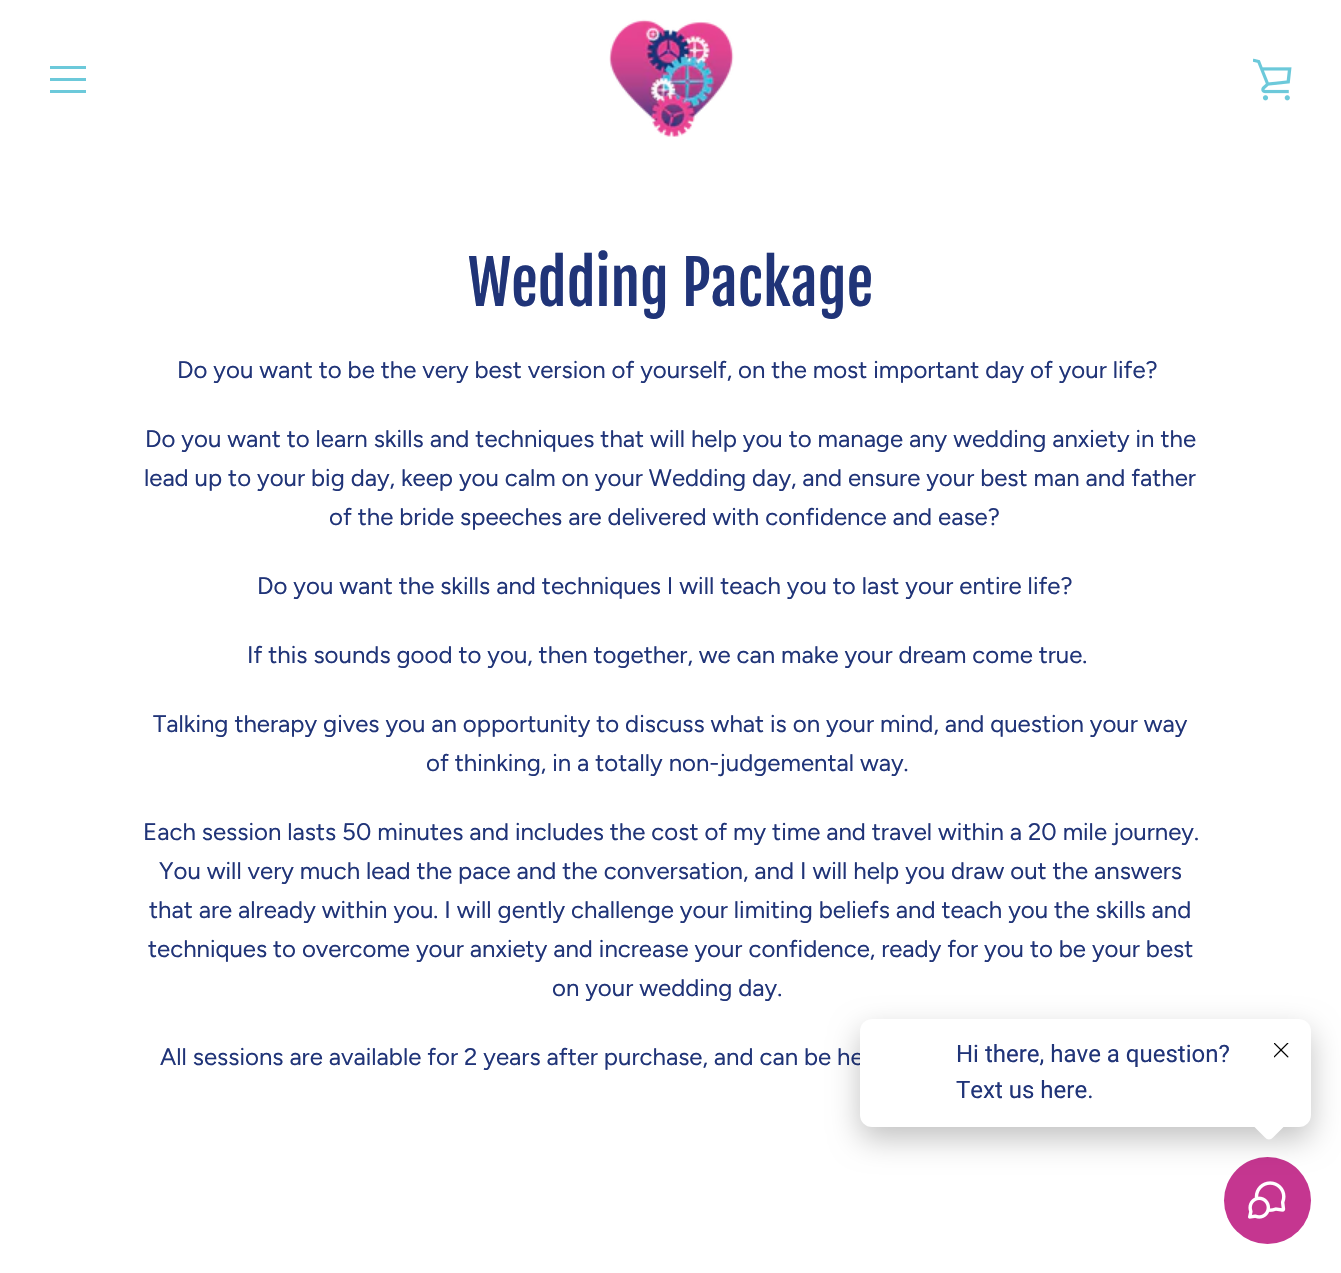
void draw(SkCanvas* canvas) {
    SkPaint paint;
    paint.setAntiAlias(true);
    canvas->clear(0xFFFFFFFF);
    paint.setColor(0xFF6CC9DA);
    canvas->drawRect(SkRect::MakeXYWH(50, 66, 36, 3), paint);
    canvas->drawRect(SkRect::MakeXYWH(50, 78, 36, 3), paint);
    canvas->drawRect(SkRect::MakeXYWH(50, 90, 36, 3), paint);
    canvas->drawImageRect(SkImages::DeferredFromEncodedData(SkData::MakeFromFileName("img1.png")), SkRect::MakeXYWH(609, 19, 125, 118), SkSamplingOptions());
    canvas->drawImageRect(SkImages::DeferredFromEncodedData(SkData::MakeFromFileName("img2.png")), SkRect::MakeXYWH(1253, 58, 39, 43), SkSamplingOptions());
    SkFont font1(fontMgr->matchFamilyStyle("Fjalla One", SkFontStyle::Normal()), 60);
    font1.setSubpixel(true);
    paint.setColor(0xFF203478);
    canvas->drawString("Wedding Package", 468, 306, font1, paint);
    SkFont font2(fontMgr->matchFamilyStyle("Figtree", SkFontStyle::Normal()), 24);
    font2.setSubpixel(true);
    canvas->drawString("Do you want to be the very best version of yourself, on the most important day of your life?", 177, 378, font2, paint);
    canvas->drawString("Do you want to learn skills and techniques that will help you to manage any wedding anxiety in the", 145, 447, font2, paint);
    canvas->drawString("lead up to your big day, keep you calm on your Wedding day, and ensure your best man and father", 144, 486, font2, paint);
    canvas->drawString("of the bride speeches are delivered with confidence and ease?", 329, 525, font2, paint);
    canvas->drawString("Do you want the skills and techniques I will teach you to last your entire life?", 257, 594, font2, paint);
    canvas->drawString("If this sounds good to you, then together, we can make your dream come true.", 247, 663, font2, paint);
    canvas->drawString("Talking therapy gives you an opportunity to discuss what is on your mind, and question your way", 153, 732, font2, paint);
    canvas->drawString("of thinking, in a totally non-judgemental way.", 426, 771, font2, paint);
    canvas->drawString("Each session lasts 50 minutes and includes the cost of my time and travel within a 20 mile journey.", 143, 840, font2, paint);
    canvas->drawString("You will very much lead the pace and the conversation, and I will help you draw out the answers", 159, 879, font2, paint);
    canvas->drawString("that are already within you. I will gently challenge your limiting beliefs and teach you the skills and", 149, 918, font2, paint);
    canvas->drawString("techniques to overcome your anxiety and increase your confidence, ready for you to be your best", 148, 957, font2, paint);
    canvas->drawString("on your wedding day.", 552, 996, font2, paint);
    canvas->drawString("All sessions are available for 2 years after purchase, and can be he", 160, 1065, font2, paint);
    paint.setColor(0xFFC53690);
    canvas->drawCircle(1267.5f, 1200.5f, 43.5f, paint);
    canvas->drawImageRect(SkImages::DeferredFromEncodedData(SkData::MakeFromFileName("img4.png")), SkRect::MakeXYWH(1248, 1181, 38, 38), SkSamplingOptions());
    paint.setColor(0x3D000000);
    paint.setMaskFilter(SkMaskFilter::MakeBlur(kNormal_SkBlurStyle, 15));
    canvas->drawRoundRect(SkRect::MakeXYWH(860, 1031, 451, 108), 12, 12, paint);
    paint.setMaskFilter(nullptr);
    paint.setColor(0xFFFFFFFF);
    canvas->drawRoundRect(SkRect::MakeXYWH(860, 1019, 451, 108), 12, 12, paint);
    SkFont font3(fontMgr->matchFamilyStyle("Roboto", SkFontStyle::Normal()), 24);
    font3.setSubpixel(true);
    paint.setColor(0xFF203478);
    canvas->drawString("Hi there, have a question?", 956, 1062, font3, paint);
    canvas->drawString("Text us here.", 956, 1098, font3, paint);
    paint.setColor(0xFFFFFFFF);
    canvas->drawPath(SkPathBuilder().moveTo(1273, 1103.5f).lineTo(1286, 1116.5f).cubicTo(1288.5f, 1118.5f, 1288.5f, 1122.5f, 1286, 1124.5f).lineTo(1273, 1137.5f).cubicTo(1271, 1140, 1267, 1140, 1265, 1137.5f).lineTo(1252, 1124.5f).cubicTo(1249.5f, 1122.5f, 1249.5f, 1118.5f, 1252, 1116.5f).lineTo(1265, 1103.5f).cubicTo(1267, 1101, 1271, 1101, 1273, 1103.5f).close().detach(), paint);
    canvas->drawImageRect(SkImages::DeferredFromEncodedData(SkData::MakeFromFileName("img3.png")), SkRect::MakeXYWH(1274, 1043, 15, 15), SkSamplingOptions());
}
